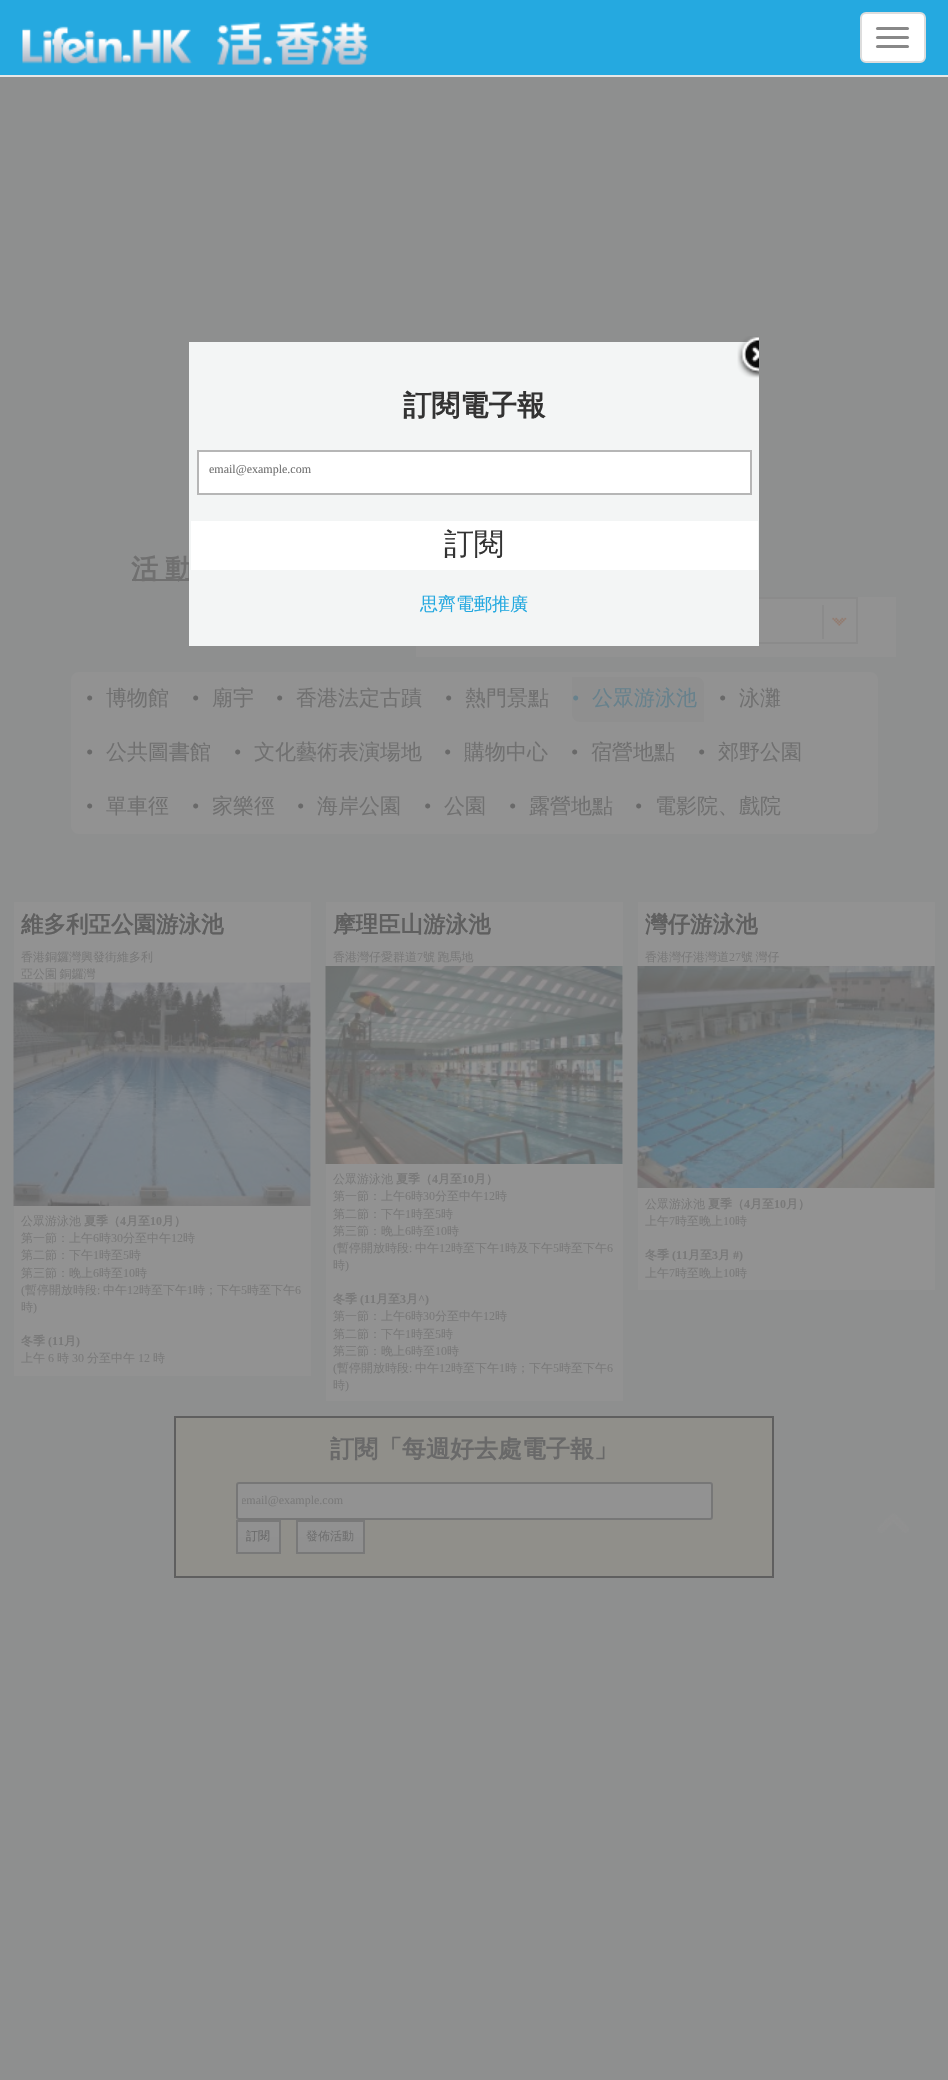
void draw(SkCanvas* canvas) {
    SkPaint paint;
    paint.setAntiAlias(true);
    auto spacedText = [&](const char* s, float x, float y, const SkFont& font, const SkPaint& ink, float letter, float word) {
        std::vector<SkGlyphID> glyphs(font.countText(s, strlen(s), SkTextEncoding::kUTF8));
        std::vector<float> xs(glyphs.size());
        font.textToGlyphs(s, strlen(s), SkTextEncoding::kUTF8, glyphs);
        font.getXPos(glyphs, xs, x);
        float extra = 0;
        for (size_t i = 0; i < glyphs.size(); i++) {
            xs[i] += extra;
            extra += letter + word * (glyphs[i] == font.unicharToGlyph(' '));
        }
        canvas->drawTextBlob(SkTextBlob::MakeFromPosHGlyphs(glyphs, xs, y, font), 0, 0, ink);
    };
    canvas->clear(0xFF8E8F8F);
    paint.setColor(0xFF25A9E0);
    canvas->drawRect(SkRect::MakeXYWH(0, 0, 948, 75), paint);
    paint.setColor(0xFFE7E7E7);
    canvas->drawRect(SkRect::MakeXYWH(0, 75, 948, 2), paint);
    canvas->drawImageRect(SkImages::DeferredFromEncodedData(SkData::MakeFromFileName("img1.png")), SkRect::MakeXYWH(22, 22, 346, 43), SkSamplingOptions());
    paint.setColor(0xFFFFFFFF);
    canvas->drawRoundRect(SkRect::MakeXYWH(861, 13, 64, 49), 5, 5, paint);
    paint.setStyle(SkPaint::kStroke_Style);
    paint.setStrokeWidth(2);
    paint.setColor(0xFFDDDDDD);
    canvas->drawRoundRect(SkRect::MakeXYWH(861, 13, 64, 49), 5, 5, paint);
    paint.setStyle(SkPaint::kFill_Style);
    paint.setColor(0xFF888888);
    canvas->drawRoundRect(SkRect::MakeXYWH(876, 27, 33, 3), 1.5f, 1.5f, paint);
    canvas->drawRoundRect(SkRect::MakeXYWH(876, 36, 33, 3), 1.5f, 1.5f, paint);
    canvas->drawRoundRect(SkRect::MakeXYWH(876, 45, 33, 3), 1.5f, 1.5f, paint);
    paint.setColor(0xFF707070);
    canvas->drawRect(SkRect::MakeXYWH(132, 579, 60, 2), paint);
    SkFont font1(fontMgr->matchFamilyStyle("WenQuanYi Zen Hei", SkFontStyle::Bold()), 27);
    font1.setSubpixel(true);
    spacedText("活 動", 131, 578, font1, paint, 0, -1);
    paint.setColor(0xFF929292);
    canvas->drawRect(SkRect::MakeXYWH(416, 597, 480, 60), paint);
    paint.setStyle(SkPaint::kStroke_Style);
    paint.setColor(0xFF8B8B8B);
    canvas->drawRect(SkRect::MakeXYWH(477, 598, 380, 45), paint);
    canvas->drawImageRect(SkImages::DeferredFromEncodedData(SkData::MakeFromFileName("img2.png")), SkRect::MakeXYWH(832, 617, 15, 9), SkSamplingOptions());
    paint.setStyle(SkPaint::kFill_Style);
    canvas->drawRect(SkRect::MakeXYWH(822, 605, 2, 34), paint);
    paint.setColor(0xFFF3F5F5);
    canvas->drawRect(SkRect::MakeXYWH(189, 342, 570, 304), paint);
    canvas->drawImageRect(SkImages::DeferredFromEncodedData(SkData::MakeFromFileName("img3.png")), SkRect::MakeXYWH(737, 336, 22, 42), SkSamplingOptions());
    SkFont font2(fontMgr->matchFamilyStyle("WenQuanYi Zen Hei", SkFontStyle::Bold()), 28.5f);
    font2.setSubpixel(true);
    paint.setColor(0xFF333333);
    canvas->drawString("訂閱電子報", 403, 415, font2, paint);
    paint.setColor(0xFFFFFFFF);
    canvas->drawRect(SkRect::MakeXYWH(198, 451, 553, 43), paint);
    paint.setStyle(SkPaint::kStroke_Style);
    paint.setColor(0xFFB6B6B6);
    canvas->drawRect(SkRect::MakeXYWH(198, 451, 553, 43), paint);
    SkFont font3(fontMgr->matchFamilyStyle("Liberation Serif", SkFontStyle::Normal()), 12);
    font3.setSubpixel(true);
    paint.setStyle(SkPaint::kFill_Style);
    paint.setColor(0xFF707070);
    canvas->drawString("email@example.com", 209, 473, font3, paint);
    paint.setColor(0xFFFFFFFF);
    canvas->drawRect(SkRect::MakeXYWH(191, 521, 567, 49), paint);
    SkFont font4(fontMgr->matchFamilyStyle("WenQuanYi Zen Hei", SkFontStyle(500, SkFontStyle::kNormal_Width, SkFontStyle::kUpright_Slant)), 30);
    font4.setSubpixel(true);
    paint.setColor(0xFF333333);
    canvas->drawString("訂閱", 444, 554, font4, paint);
    SkFont font5(fontMgr->matchFamilyStyle("WenQuanYi Zen Hei", SkFontStyle(500, SkFontStyle::kNormal_Width, SkFontStyle::kUpright_Slant)), 18);
    font5.setSubpixel(true);
    paint.setColor(0xFF25A9E0);
    canvas->drawString("思齊電郵推廣", 420, 610, font5, paint);
    paint.setColor(0xFF929292);
    canvas->drawRoundRect(SkRect::MakeXYWH(71, 672, 807, 162), 8, 8, paint);
    SkFont font6(fontMgr->matchFamilyStyle("Liberation Serif", SkFontStyle::Normal()), 21);
    font6.setSubpixel(true);
    paint.setColor(0xFF696969);
    canvas->drawString("•", 86, 705, font6, paint);
    SkFont font7(fontMgr->matchFamilyStyle("WenQuanYi Zen Hei", SkFontStyle(500, SkFontStyle::kNormal_Width, SkFontStyle::kUpright_Slant)), 21);
    font7.setSubpixel(true);
    paint.setColor(0xFF707070);
    canvas->drawString("博物館", 106, 705, font7, paint);
    paint.setColor(0xFF696969);
    canvas->drawString("•", 192, 705, font6, paint);
    paint.setColor(0xFF707070);
    canvas->drawString("廟宇", 212, 705, font7, paint);
    paint.setColor(0xFF696969);
    canvas->drawString("•", 276, 705, font6, paint);
    paint.setColor(0xFF707070);
    canvas->drawString("香港法定古蹟", 296, 705, font7, paint);
    paint.setColor(0xFF696969);
    canvas->drawString("•", 445, 705, font6, paint);
    paint.setColor(0xFF707070);
    canvas->drawString("熱門景點", 465, 705, font7, paint);
    paint.setColor(0xFF8F8F8F);
    canvas->drawPath(SkPathBuilder().moveTo(572, 677).lineTo(696, 677).cubicTo(700.5f, 677, 704, 680.5f, 704, 685).lineTo(704, 722).lineTo(580, 722).cubicTo(575.5f, 722, 572, 718.5f, 572, 714).close().detach(), paint);
    paint.setColor(0xFF67818C);
    canvas->drawString("•", 572, 705, font6, paint);
    canvas->drawString("公眾游泳池", 592, 705, font7, paint);
    paint.setColor(0xFF696969);
    canvas->drawString("•", 719, 705, font6, paint);
    paint.setColor(0xFF707070);
    canvas->drawString("泳灘", 739, 705, font7, paint);
    paint.setColor(0xFF696969);
    canvas->drawString("•", 86, 759, font6, paint);
    paint.setColor(0xFF707070);
    canvas->drawString("公共圖書館", 106, 759, font7, paint);
    paint.setColor(0xFF696969);
    canvas->drawString("•", 234, 759, font6, paint);
    paint.setColor(0xFF707070);
    canvas->drawString("文化藝術表演場地", 254, 759, font7, paint);
    paint.setColor(0xFF696969);
    canvas->drawString("•", 444, 759, font6, paint);
    paint.setColor(0xFF707070);
    canvas->drawString("購物中心", 464, 759, font7, paint);
    paint.setColor(0xFF696969);
    canvas->drawString("•", 571, 759, font6, paint);
    paint.setColor(0xFF707070);
    canvas->drawString("宿營地點", 591, 759, font7, paint);
    paint.setColor(0xFF696969);
    canvas->drawString("•", 698, 759, font6, paint);
    paint.setColor(0xFF707070);
    canvas->drawString("郊野公園", 718, 759, font7, paint);
    paint.setColor(0xFF696969);
    canvas->drawString("•", 86, 813, font6, paint);
    paint.setColor(0xFF707070);
    canvas->drawString("單車徑", 106, 813, font7, paint);
    paint.setColor(0xFF696969);
    canvas->drawString("•", 192, 813, font6, paint);
    paint.setColor(0xFF707070);
    canvas->drawString("家樂徑", 212, 813, font7, paint);
    paint.setColor(0xFF696969);
    canvas->drawString("•", 297, 813, font6, paint);
    paint.setColor(0xFF707070);
    canvas->drawString("海岸公園", 317, 813, font7, paint);
    paint.setColor(0xFF696969);
    canvas->drawString("•", 424, 813, font6, paint);
    paint.setColor(0xFF707070);
    canvas->drawString("公園", 444, 813, font7, paint);
    paint.setColor(0xFF696969);
    canvas->drawString("•", 509, 813, font6, paint);
    paint.setColor(0xFF707070);
    canvas->drawString("露營地點", 529, 813, font7, paint);
    paint.setColor(0xFF696969);
    canvas->drawString("•", 635, 813, font6, paint);
    paint.setColor(0xFF707070);
    canvas->drawString("電影院、戲院", 655, 813, font7, paint);
    paint.setColor(0xFF929292);
    canvas->drawRect(SkRect::MakeXYWH(14, 902, 297, 474), paint);
    SkFont font8(fontMgr->matchFamilyStyle("WenQuanYi Zen Hei", SkFontStyle::Bold()), 22.5f);
    font8.setSubpixel(true);
    paint.setColor(0xFF5F5F5F);
    canvas->drawString("維多利亞公園游泳池", 21, 932, font8, paint);
    SkFont font9(fontMgr->matchFamilyStyle("WenQuanYi Zen Hei", SkFontStyle(500, SkFontStyle::kNormal_Width, SkFontStyle::kUpright_Slant)), 12);
    font9.setSubpixel(true);
    paint.setColor(0xFF797979);
    canvas->drawString("香港銅鑼灣興發街維多利", 21, 961, font9, paint);
    spacedText("亞公園 銅鑼灣", 21, 978, font9, paint, 0, -1);
    canvas->drawImageRect(SkImages::DeferredFromEncodedData(SkData::MakeFromFileName("img4.png")), SkRect::MakeXYWH(13, 982, 298, 224), SkSamplingOptions());
    canvas->drawString("公眾游泳池", 21, 1225, font9, paint);
    SkFont font10(fontMgr->matchFamilyStyle("WenQuanYi Zen Hei", SkFontStyle::Bold()), 12);
    font10.setSubpixel(true);
    canvas->drawString("夏季（", 84, 1225, font10, paint);
    SkFont font11(fontMgr->matchFamilyStyle("Liberation Serif", SkFontStyle::Bold()), 12);
    font11.setSubpixel(true);
    canvas->drawString("4", 120, 1225, font11, paint);
    canvas->drawString("月至", 126, 1225, font10, paint);
    canvas->drawString("10", 150, 1225, font11, paint);
    canvas->drawString("月）", 162, 1225, font10, paint);
    canvas->drawString("第一節：上午", 21, 1242, font9, paint);
    canvas->drawString("6", 93, 1242, font3, paint);
    canvas->drawString("時", 99, 1242, font9, paint);
    canvas->drawString("30", 111, 1242, font3, paint);
    canvas->drawString("分至中午", 123, 1242, font9, paint);
    canvas->drawString("12", 171, 1242, font3, paint);
    canvas->drawString("時", 183, 1242, font9, paint);
    canvas->drawString("第二節：下午", 21, 1259, font9, paint);
    canvas->drawString("1", 93, 1259, font3, paint);
    canvas->drawString("時至", 99, 1259, font9, paint);
    canvas->drawString("5", 123, 1259, font3, paint);
    canvas->drawString("時", 129, 1259, font9, paint);
    canvas->drawString("第三節：晚上", 21, 1277, font9, paint);
    canvas->drawString("6", 93, 1277, font3, paint);
    canvas->drawString("時至", 99, 1277, font9, paint);
    canvas->drawString("10", 123, 1277, font3, paint);
    canvas->drawString("時", 135, 1277, font9, paint);
    canvas->drawString("(", 21, 1294, font3, paint);
    canvas->drawString("暫停開放時段", 25, 1294, font9, paint);
    canvas->drawString(":", 97, 1294, font3, paint);
    canvas->drawString("中午", 103, 1294, font9, paint);
    canvas->drawString("12", 127, 1294, font3, paint);
    canvas->drawString("時至下午", 139, 1294, font9, paint);
    canvas->drawString("1", 187, 1294, font3, paint);
    canvas->drawString("時；下午", 193, 1294, font9, paint);
    canvas->drawString("5", 241, 1294, font3, paint);
    canvas->drawString("時至下午", 247, 1294, font9, paint);
    canvas->drawString("6", 295, 1294, font3, paint);
    canvas->drawString("時", 21, 1311, font9, paint);
    canvas->drawString(")", 33, 1311, font3, paint);
    canvas->drawString("冬季", 21, 1345, font10, paint);
    canvas->drawString("(11", 48, 1345, font11, paint);
    canvas->drawString("月", 64, 1345, font10, paint);
    canvas->drawString(")", 76, 1345, font11, paint);
    canvas->drawString("上午", 21, 1362, font9, paint);
    canvas->drawString("6", 48, 1362, font3, paint);
    canvas->drawString("時", 57, 1362, font9, paint);
    canvas->drawString("30", 72, 1362, font3, paint);
    canvas->drawString("分至中午", 87, 1362, font9, paint);
    canvas->drawString("12", 138, 1362, font3, paint);
    canvas->drawString("時", 153, 1362, font9, paint);
    paint.setColor(0xFF929292);
    canvas->drawRect(SkRect::MakeXYWH(326, 902, 297, 499), paint);
    paint.setColor(0xFF5F5F5F);
    canvas->drawString("摩理臣山游泳池", 333, 932, font8, paint);
    paint.setColor(0xFF797979);
    canvas->drawString("香港灣仔愛群道", 333, 961, font9, paint);
    canvas->drawString("7", 417, 961, font3, paint);
    spacedText("號 跑馬地", 423, 961, font9, paint, 0, -1);
    canvas->drawImageRect(SkImages::DeferredFromEncodedData(SkData::MakeFromFileName("img5.png")), SkRect::MakeXYWH(325, 966, 298, 198), SkSamplingOptions());
    canvas->drawString("公眾游泳池", 333, 1183, font9, paint);
    canvas->drawString("夏季（", 396, 1183, font10, paint);
    canvas->drawString("4", 432, 1183, font11, paint);
    canvas->drawString("月至", 438, 1183, font10, paint);
    canvas->drawString("10", 462, 1183, font11, paint);
    canvas->drawString("月）", 474, 1183, font10, paint);
    canvas->drawString("第一節：上午", 333, 1200, font9, paint);
    canvas->drawString("6", 405, 1200, font3, paint);
    canvas->drawString("時", 411, 1200, font9, paint);
    canvas->drawString("30", 423, 1200, font3, paint);
    canvas->drawString("分至中午", 435, 1200, font9, paint);
    canvas->drawString("12", 483, 1200, font3, paint);
    canvas->drawString("時", 495, 1200, font9, paint);
    canvas->drawString("第二節：下午", 333, 1218, font9, paint);
    canvas->drawString("1", 405, 1218, font3, paint);
    canvas->drawString("時至", 411, 1218, font9, paint);
    canvas->drawString("5", 435, 1218, font3, paint);
    canvas->drawString("時", 441, 1218, font9, paint);
    canvas->drawString("第三節：晚上", 333, 1235, font9, paint);
    canvas->drawString("6", 405, 1235, font3, paint);
    canvas->drawString("時至", 411, 1235, font9, paint);
    canvas->drawString("10", 435, 1235, font3, paint);
    canvas->drawString("時", 447, 1235, font9, paint);
    canvas->drawString("(", 333, 1252, font3, paint);
    canvas->drawString("暫停開放時段", 337, 1252, font9, paint);
    canvas->drawString(":", 409, 1252, font3, paint);
    canvas->drawString("中午", 415, 1252, font9, paint);
    canvas->drawString("12", 439, 1252, font3, paint);
    canvas->drawString("時至下午", 451, 1252, font9, paint);
    canvas->drawString("1", 499, 1252, font3, paint);
    canvas->drawString("時及下午", 505, 1252, font9, paint);
    canvas->drawString("5", 553, 1252, font3, paint);
    canvas->drawString("時至下午", 559, 1252, font9, paint);
    canvas->drawString("6", 607, 1252, font3, paint);
    canvas->drawString("時", 333, 1269, font9, paint);
    canvas->drawString(")", 345, 1269, font3, paint);
    canvas->drawString("冬季", 333, 1303, font10, paint);
    canvas->drawString("(11", 360, 1303, font11, paint);
    canvas->drawString("月至", 376, 1303, font10, paint);
    canvas->drawString("3", 400, 1303, font11, paint);
    canvas->drawString("月", 406, 1303, font10, paint);
    canvas->drawString("^)", 418, 1303, font11, paint);
    canvas->drawString("第一節：上午", 333, 1320, font9, paint);
    canvas->drawString("6", 405, 1320, font3, paint);
    canvas->drawString("時", 411, 1320, font9, paint);
    canvas->drawString("30", 423, 1320, font3, paint);
    canvas->drawString("分至中午", 435, 1320, font9, paint);
    canvas->drawString("12", 483, 1320, font3, paint);
    canvas->drawString("時", 495, 1320, font9, paint);
    canvas->drawString("第二節：下午", 333, 1338, font9, paint);
    canvas->drawString("1", 405, 1338, font3, paint);
    canvas->drawString("時至", 411, 1338, font9, paint);
    canvas->drawString("5", 435, 1338, font3, paint);
    canvas->drawString("時", 441, 1338, font9, paint);
    canvas->drawString("第三節：晚上", 333, 1355, font9, paint);
    canvas->drawString("6", 405, 1355, font3, paint);
    canvas->drawString("時至", 411, 1355, font9, paint);
    canvas->drawString("10", 435, 1355, font3, paint);
    canvas->drawString("時", 447, 1355, font9, paint);
    canvas->drawString("(", 333, 1372, font3, paint);
    canvas->drawString("暫停開放時段", 337, 1372, font9, paint);
    canvas->drawString(":", 409, 1372, font3, paint);
    canvas->drawString("中午", 415, 1372, font9, paint);
    canvas->drawString("12", 439, 1372, font3, paint);
    canvas->drawString("時至下午", 451, 1372, font9, paint);
    canvas->drawString("1", 499, 1372, font3, paint);
    canvas->drawString("時；下午", 505, 1372, font9, paint);
    canvas->drawString("5", 553, 1372, font3, paint);
    canvas->drawString("時至下午", 559, 1372, font9, paint);
    canvas->drawString("6", 607, 1372, font3, paint);
    canvas->drawString("時", 333, 1389, font9, paint);
    canvas->drawString(")", 345, 1389, font3, paint);
    paint.setColor(0xFF929292);
    canvas->drawRect(SkRect::MakeXYWH(638, 902, 297, 388), paint);
    paint.setColor(0xFF5F5F5F);
    canvas->drawString("灣仔游泳池", 645, 932, font8, paint);
    paint.setColor(0xFF797979);
    canvas->drawString("香港灣仔港灣道", 645, 961, font9, paint);
    canvas->drawString("27", 729, 961, font3, paint);
    spacedText("號 灣仔", 741, 961, font9, paint, 0, -1);
    canvas->drawImageRect(SkImages::DeferredFromEncodedData(SkData::MakeFromFileName("img6.png")), SkRect::MakeXYWH(637, 966, 298, 222), SkSamplingOptions());
    canvas->drawString("公眾游泳池", 645, 1208, font9, paint);
    canvas->drawString("夏季（", 708, 1208, font10, paint);
    canvas->drawString("4", 744, 1208, font11, paint);
    canvas->drawString("月至", 750, 1208, font10, paint);
    canvas->drawString("10", 774, 1208, font11, paint);
    canvas->drawString("月）", 786, 1208, font10, paint);
    canvas->drawString("上午", 645, 1225, font9, paint);
    canvas->drawString("7", 669, 1225, font3, paint);
    canvas->drawString("時至晚上", 675, 1225, font9, paint);
    canvas->drawString("10", 723, 1225, font3, paint);
    canvas->drawString("時", 735, 1225, font9, paint);
    canvas->drawString("冬季", 645, 1259, font10, paint);
    canvas->drawString("(11", 672, 1259, font11, paint);
    canvas->drawString("月至", 688, 1259, font10, paint);
    canvas->drawString("3", 712, 1259, font11, paint);
    canvas->drawString("月", 718, 1259, font10, paint);
    canvas->drawString("#)", 733, 1259, font11, paint);
    canvas->drawString("上午", 645, 1277, font9, paint);
    canvas->drawString("7", 669, 1277, font3, paint);
    canvas->drawString("時至晚上", 675, 1277, font9, paint);
    canvas->drawString("10", 723, 1277, font3, paint);
    canvas->drawString("時", 735, 1277, font9, paint);
    paint.setColor(0xFF908F8A);
    canvas->drawRect(SkRect::MakeXYWH(175, 1417, 598, 160), paint);
    paint.setStyle(SkPaint::kStroke_Style);
    paint.setColor(0xFF5F5F5F);
    canvas->drawRect(SkRect::MakeXYWH(175, 1417, 598, 160), paint);
    SkFont font12(fontMgr->matchFamilyStyle("WenQuanYi Zen Hei", SkFontStyle::Bold()), 24);
    font12.setSubpixel(true);
    paint.setStyle(SkPaint::kFill_Style);
    paint.setColor(0xFF696969);
    canvas->drawString("訂閱「每週好去處電子報」", 330, 1457, font12, paint);
    paint.setColor(0xFF929292);
    canvas->drawRoundRect(SkRect::MakeXYWH(237, 1483, 475, 36), 2, 2, paint);
    paint.setStyle(SkPaint::kStroke_Style);
    paint.setColor(0xFF777777);
    canvas->drawRoundRect(SkRect::MakeXYWH(237, 1483, 475, 36), 2, 2, paint);
    canvas->save();
    canvas->clipRect(SkRect::MakeXYWH(242, 1494, 465, 14));
    paint.setStyle(SkPaint::kFill_Style);
    paint.setColor(0xFF797979);
    canvas->drawString("email@example.com", 241, 1504, font3, paint);
    canvas->restore();
    {
        const SkColor colors[] = {0xFF919191, 0xFF909090};
        const float stops[] = {0, 1};
        const SkPoint ends[] = {{258, 1521}, {258, 1553}};
        paint.setShader(SkGradientShader::MakeLinear(ends, colors, stops, 2, SkTileMode::kClamp));
        paint.setAlpha(255);
    }
    canvas->drawRect(SkRect::MakeXYWH(238, 1522, 41, 30), paint);
    paint.setStyle(SkPaint::kStroke_Style);
    paint.setShader(nullptr);
    paint.setColor(0xFF797979);
    canvas->drawRect(SkRect::MakeXYWH(237, 1521, 43, 32), paint);
    paint.setStyle(SkPaint::kFill_Style);
    paint.setColor(0xFF696969);
    canvas->drawString("訂閱", 246, 1540, font9, paint);
    {
        const SkColor colors[] = {0xFF919191, 0xFF909090};
        const float stops[] = {0, 1};
        const SkPoint ends[] = {{330, 1521}, {330, 1553}};
        paint.setShader(SkGradientShader::MakeLinear(ends, colors, stops, 2, SkTileMode::kClamp));
        paint.setAlpha(255);
    }
    canvas->drawRect(SkRect::MakeXYWH(298, 1522, 65, 30), paint);
    paint.setStyle(SkPaint::kStroke_Style);
    paint.setShader(nullptr);
    paint.setColor(0xFF797979);
    canvas->drawRect(SkRect::MakeXYWH(297, 1521, 67, 32), paint);
    paint.setStyle(SkPaint::kFill_Style);
    paint.setColor(0xFF707070);
    canvas->drawString("發佈活動", 306, 1540, font9, paint);
    canvas->drawImageRect(SkImages::DeferredFromEncodedData(SkData::MakeFromFileName("img7.png")), SkRect::MakeXYWH(877, 1513, 32, 20), SkSamplingOptions());
}
